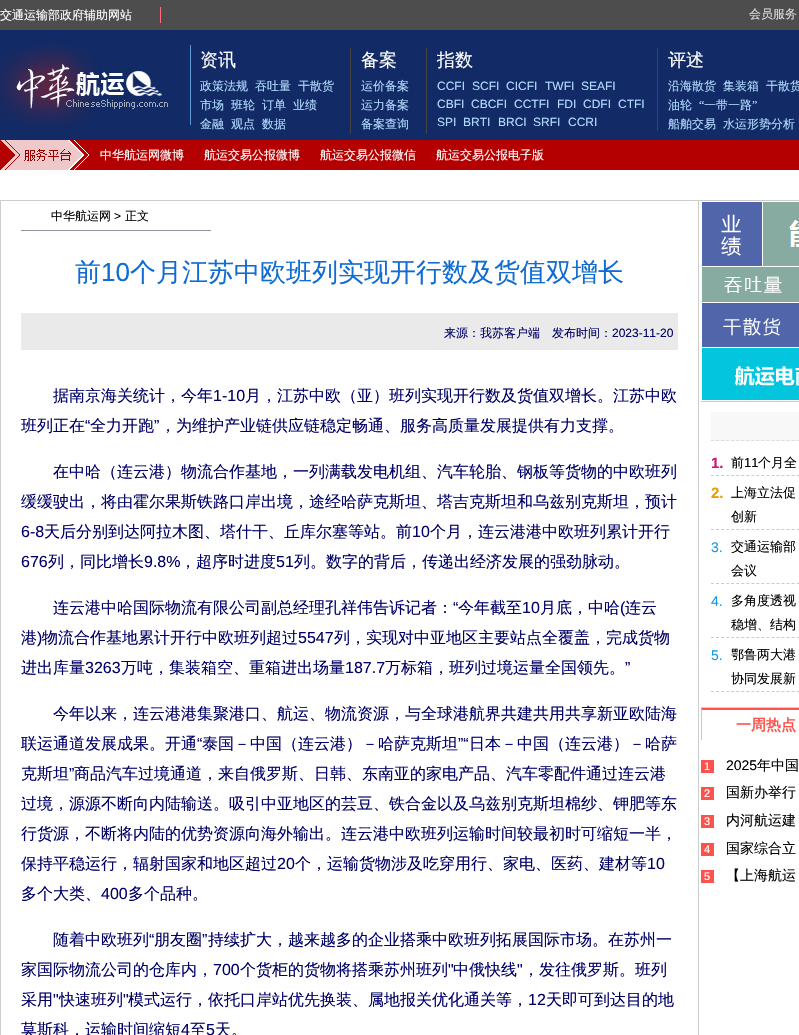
void draw(SkCanvas* canvas) {
    SkPaint paint;
    paint.setAntiAlias(true);
    canvas->clear(0xFFFFFFFF);
    canvas->drawImageRect(SkImages::DeferredFromEncodedData(SkData::MakeFromFileName("img1.png")), SkRect::MakeXYWH(0, 0, 799, 170), SkSamplingOptions());
    paint.setColor(0xFFFF6D7A);
    canvas->drawRect(SkRect::MakeXYWH(160, 7, 1, 16), paint);
    SkFont font1(fontMgr->matchFamilyStyle("WenQuanYi Zen Hei", SkFontStyle(500, SkFontStyle::kNormal_Width, SkFontStyle::kUpright_Slant)), 12);
    font1.setSubpixel(true);
    paint.setColor(0xFFFFFFFF);
    canvas->drawString("交通运输部政府辅助网站", 0, 19, font1, paint);
    paint.setColor(0xFFDDDDDD);
    canvas->drawString("会员服务", 749, 18, font1, paint);
    paint.setColor(0xFF5E99DB);
    canvas->drawRect(SkRect::MakeXYWH(190, 45, 1, 80), paint);
    canvas->drawImageRect(SkImages::DeferredFromEncodedData(SkData::MakeFromFileName("img2.png")), SkRect::MakeXYWH(0, 45, 168, 80), SkSamplingOptions());
    paint.setColor(0xFF444444);
    canvas->drawRect(SkRect::MakeXYWH(350, 48, 1, 86), paint);
    SkFont font2(fontMgr->matchFamilyStyle("WenQuanYi Zen Hei", SkFontStyle(500, SkFontStyle::kNormal_Width, SkFontStyle::kUpright_Slant)), 18);
    font2.setSubpixel(true);
    paint.setColor(0xFFFFFFFF);
    canvas->drawString("资讯", 200, 66, font2, paint);
    paint.setColor(0xFFB2DCFF);
    canvas->drawString("政策法规", 200, 90, font1, paint);
    canvas->drawString("吞吐量", 255, 90, font1, paint);
    canvas->drawString("干散货", 298, 90, font1, paint);
    canvas->drawString("市场", 200, 109, font1, paint);
    canvas->drawString("班轮", 231, 109, font1, paint);
    canvas->drawString("订单", 262, 109, font1, paint);
    canvas->drawString("业绩", 293, 109, font1, paint);
    canvas->drawString("金融", 200, 128, font1, paint);
    canvas->drawString("观点", 231, 128, font1, paint);
    canvas->drawString("数据", 262, 128, font1, paint);
    paint.setColor(0xFF444444);
    canvas->drawRect(SkRect::MakeXYWH(426, 48, 1, 86), paint);
    paint.setColor(0xFFFFFFFF);
    canvas->drawString("备案", 361, 66, font2, paint);
    paint.setColor(0xFFB2DCFF);
    canvas->drawString("运价备案", 361, 90, font1, paint);
    canvas->drawString("运力备案", 361, 109, font1, paint);
    canvas->drawString("备案查询", 361, 128, font1, paint);
    paint.setColor(0xFF444444);
    canvas->drawRect(SkRect::MakeXYWH(657, 48, 1, 83), paint);
    paint.setColor(0xFFFFFFFF);
    canvas->drawString("指数", 437, 66, font2, paint);
    SkFont font3(fontMgr->matchFamilyStyle("Liberation Sans", SkFontStyle::Normal()), 12);
    font3.setSubpixel(true);
    paint.setColor(0xFFB2DCFF);
    canvas->drawString("CCFI", 437, 90, font3, paint);
    canvas->drawString("SCFI", 472, 90, font3, paint);
    canvas->drawString("CICFI", 506, 90, font3, paint);
    canvas->drawString("TWFI", 545, 90, font3, paint);
    canvas->drawString("SEAFI", 581, 90, font3, paint);
    canvas->drawString("CBFI", 437, 108, font3, paint);
    canvas->drawString("CBCFI", 471, 108, font3, paint);
    canvas->drawString("CCTFI", 514, 108, font3, paint);
    canvas->drawString("FDI", 557, 108, font3, paint);
    canvas->drawString("CDFI", 583, 108, font3, paint);
    canvas->drawString("CTFI", 618, 108, font3, paint);
    canvas->drawString("SPI", 437, 126, font3, paint);
    canvas->drawString("BRTI", 463, 126, font3, paint);
    canvas->drawString("BRCI", 498, 126, font3, paint);
    canvas->drawString("SRFI", 533, 126, font3, paint);
    canvas->drawString("CCRI", 568, 126, font3, paint);
    paint.setColor(0xFFFFFFFF);
    canvas->drawString("评述", 668, 66, font2, paint);
    paint.setColor(0xFFB2DCFF);
    canvas->drawString("沿海散货", 668, 90, font1, paint);
    canvas->drawString("集装箱", 723, 90, font1, paint);
    canvas->drawString("干散货", 766, 90, font1, paint);
    canvas->drawString("油轮", 668, 109, font1, paint);
    SkFont font4(fontMgr->matchFamilyStyle("Liberation Serif", SkFontStyle::Normal()), 12);
    font4.setSubpixel(true);
    canvas->drawString("“", 699, 109, font4, paint);
    canvas->drawString("一带一路", 704, 109, font1, paint);
    canvas->drawString("”", 752, 109, font4, paint);
    canvas->drawString("船舶交易", 668, 128, font1, paint);
    canvas->drawString("水运形势分析", 723, 128, font1, paint);
    canvas->drawImageRect(SkImages::DeferredFromEncodedData(SkData::MakeFromFileName("img3.png")), SkRect::MakeXYWH(1, 140, 88, 30), SkSamplingOptions());
    paint.setColor(0xFFFFFFFF);
    canvas->drawString("中华航运网微博", 100, 159, font1, paint);
    canvas->drawString("航运交易公报微博", 204, 159, font1, paint);
    canvas->drawString("航运交易公报微信", 320, 159, font1, paint);
    canvas->drawString("航运交易公报电子版", 436, 159, font1, paint);
    paint.setStyle(SkPaint::kStroke_Style);
    paint.setStrokeWidth(1);
    paint.setColor(0xFFCECDCD);
    canvas->drawRect(SkRect::MakeXYWH(0.5f, 200.5f, 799, 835), paint);
    paint.setStyle(SkPaint::kFill_Style);
    canvas->drawRect(SkRect::MakeXYWH(698, 201, 1, 834), paint);
    paint.setColor(0xFF8D94A0);
    canvas->drawRect(SkRect::MakeXYWH(21, 230, 190, 1), paint);
    paint.setColor(0xFF000000);
    canvas->drawString("中华航运网", 51, 220, font1, paint);
    canvas->drawString(">", 114, 220, font3, paint);
    canvas->drawString("正文", 125, 220, font1, paint);
    SkFont font5(fontMgr->matchFamilyStyle("WenQuanYi Zen Hei", SkFontStyle(500, SkFontStyle::kNormal_Width, SkFontStyle::kUpright_Slant)), 26);
    font5.setSubpixel(true);
    paint.setColor(0xFF116CD2);
    canvas->drawString("前", 75, 281, font5, paint);
    SkFont font6(fontMgr->matchFamilyStyle("Liberation Sans", SkFontStyle::Normal()), 26);
    font6.setSubpixel(true);
    canvas->drawString("10", 101, 281, font6, paint);
    canvas->drawString("个月江苏中欧班列实现开行数及货值双增长", 130, 281, font5, paint);
    paint.setColor(0xFFEAEAEA);
    canvas->drawRect(SkRect::MakeXYWH(21, 313, 657, 37), paint);
    paint.setColor(0xFF000066);
    canvas->drawString("来源：我苏客户端", 444, 337, font1, paint);
    canvas->drawString("发布时间：", 552, 337, font1, paint);
    canvas->drawString("2023-11-20", 612, 337, font3, paint);
    SkFont font7(fontMgr->matchFamilyStyle("WenQuanYi Zen Hei", SkFontStyle(500, SkFontStyle::kNormal_Width, SkFontStyle::kUpright_Slant)), 16);
    font7.setSubpixel(true);
    canvas->drawString("据南京海关统计，今年", 53, 401, font7, paint);
    SkFont font8(fontMgr->matchFamilyStyle("Liberation Sans", SkFontStyle::Normal()), 16);
    font8.setSubpixel(true);
    canvas->drawString("1-10", 213, 401, font8, paint);
    canvas->drawString("月，江苏中欧（亚）班列实现开行数及货值双增长。江苏中欧", 245, 401, font7, paint);
    canvas->drawString("班列正在", 21, 431, font7, paint);
    canvas->drawString("“", 85, 431, font8, paint);
    canvas->drawString("全力开跑", 90, 431, font7, paint);
    canvas->drawString("”", 154, 431, font8, paint);
    canvas->drawString("，为维护产业链供应链稳定畅通、服务高质量发展提供有力支撑。", 160, 431, font7, paint);
    canvas->drawString("在中哈（连云港）物流合作基地，一列满载发电机组、汽车轮胎、钢板等货物的中欧班列", 53, 477, font7, paint);
    canvas->drawString("缓缓驶出，将由霍尔果斯铁路口岸出境，途经哈萨克斯坦、塔吉克斯坦和乌兹别克斯坦，预计", 21, 507, font7, paint);
    canvas->drawString("6-8", 21, 537, font8, paint);
    canvas->drawString("天后分别到达阿拉木图、塔什干、丘库尔塞等站。前", 44, 537, font7, paint);
    canvas->drawString("10", 412, 537, font8, paint);
    canvas->drawString("个月，连云港港中欧班列累计开行", 430, 537, font7, paint);
    canvas->drawString("676", 21, 567, font8, paint);
    canvas->drawString("列，同比增长", 48, 567, font7, paint);
    canvas->drawString("9.8%", 144, 567, font8, paint);
    canvas->drawString("，超序时进度", 180, 567, font7, paint);
    canvas->drawString("51", 276, 567, font8, paint);
    canvas->drawString("列。数字的背后，传递出经济发展的强劲脉动。", 294, 567, font7, paint);
    canvas->drawString("连云港中哈国际物流有限公司副总经理孔祥伟告诉记者：", 53, 613, font7, paint);
    canvas->drawString("“", 453, 613, font8, paint);
    canvas->drawString("今年截至", 458, 613, font7, paint);
    canvas->drawString("10", 522, 613, font8, paint);
    canvas->drawString("月底，中哈", 540, 613, font7, paint);
    canvas->drawString("(", 620, 613, font8, paint);
    canvas->drawString("连云", 625, 613, font7, paint);
    canvas->drawString("港", 21, 643, font7, paint);
    canvas->drawString(")", 37, 643, font8, paint);
    canvas->drawString("物流合作基地累计开行中欧班列超过", 42, 643, font7, paint);
    canvas->drawString("5547", 298, 643, font8, paint);
    canvas->drawString("列，实现对中亚地区主要站点全覆盖，完成货物", 334, 643, font7, paint);
    canvas->drawString("进出库量", 21, 673, font7, paint);
    canvas->drawString("3263", 85, 673, font8, paint);
    canvas->drawString("万吨，集装箱空、重箱进出场量", 121, 673, font7, paint);
    canvas->drawString("187.7", 345, 673, font8, paint);
    canvas->drawString("万标箱，班列过境运量全国领先。", 385, 673, font7, paint);
    canvas->drawString("”", 625, 673, font8, paint);
    canvas->drawString("今年以来，连云港港集聚港口、航运、物流资源，与全球港航界共建共用共享新亚欧陆海", 53, 719, font7, paint);
    canvas->drawString("联运通道发展成果。开通", 21, 749, font7, paint);
    canvas->drawString("“", 197, 749, font8, paint);
    canvas->drawString("泰国－中国（连云港）－哈萨克斯坦", 202, 749, font7, paint);
    canvas->drawString("”“", 458, 749, font8, paint);
    canvas->drawString("日本－中国（连云港）－哈萨", 469, 749, font7, paint);
    canvas->drawString("克斯坦", 21, 779, font7, paint);
    canvas->drawString("”", 69, 779, font8, paint);
    canvas->drawString("商品汽车过境通道，来自俄罗斯、日韩、东南亚的家电产品、汽车零配件通过连云港", 74, 779, font7, paint);
    canvas->drawString("过境，源源不断向内陆输送。吸引中亚地区的芸豆、铁合金以及乌兹别克斯坦棉纱、钾肥等东", 21, 809, font7, paint);
    canvas->drawString("行货源，不断将内陆的优势资源向海外输出。连云港中欧班列运输时间较最初时可缩短一半，", 21, 839, font7, paint);
    canvas->drawString("保持平稳运行，辐射国家和地区超过", 21, 869, font7, paint);
    canvas->drawString("20", 277, 869, font8, paint);
    canvas->drawString("个，运输货物涉及吃穿用行、家电、医药、建材等", 295, 869, font7, paint);
    canvas->drawString("10", 647, 869, font8, paint);
    canvas->drawString("多个大类、", 21, 899, font7, paint);
    canvas->drawString("400", 101, 899, font8, paint);
    canvas->drawString("多个品种。", 128, 899, font7, paint);
    canvas->drawString("随着中欧班列", 53, 945, font7, paint);
    canvas->drawString("“", 149, 945, font8, paint);
    canvas->drawString("朋友圈", 154, 945, font7, paint);
    canvas->drawString("”", 202, 945, font8, paint);
    canvas->drawString("持续扩大，越来越多的企业搭乘中欧班列拓展国际市场。在苏州一", 208, 945, font7, paint);
    canvas->drawString("家国际物流公司的仓库内，", 21, 975, font7, paint);
    canvas->drawString("700", 213, 975, font8, paint);
    canvas->drawString("个货柜的货物将搭乘苏州班列", 240, 975, font7, paint);
    canvas->drawString("\"", 448, 975, font8, paint);
    canvas->drawString("中俄快线", 453, 975, font7, paint);
    canvas->drawString("\"", 517, 975, font8, paint);
    canvas->drawString("，发往俄罗斯。班列", 523, 975, font7, paint);
    canvas->drawString("采用", 21, 1005, font7, paint);
    canvas->drawString("\"", 53, 1005, font8, paint);
    canvas->drawString("快速班列", 59, 1005, font7, paint);
    canvas->drawString("\"", 123, 1005, font8, paint);
    canvas->drawString("模式运行，依托口岸站优先换装、属地报关优化通关等，", 128, 1005, font7, paint);
    canvas->drawString("12", 528, 1005, font8, paint);
    canvas->drawString("天即可到达目的地", 546, 1005, font7, paint);
    canvas->drawString("莫斯科，运输时间缩短", 21, 1035, font7, paint);
    canvas->drawString("4", 181, 1035, font8, paint);
    canvas->drawString("至", 190, 1035, font7, paint);
    canvas->drawString("5", 206, 1035, font8, paint);
    canvas->drawString("天。", 215, 1035, font7, paint);
    paint.setColor(0xFFCFCECE);
    canvas->drawRect(SkRect::MakeXYWH(701, 401, 98, 1), paint);
    canvas->drawImageRect(SkImages::DeferredFromEncodedData(SkData::MakeFromFileName("img4.png")), SkRect::MakeXYWH(702, 202, 97, 198), SkSamplingOptions());
    paint.setColor(0xFFF8F8F8);
    canvas->drawRect(SkRect::MakeXYWH(711, 412, 88, 29), paint);
    paint.setStyle(SkPaint::kStroke_Style);
    paint.setColor(0xFFDDDCDC);
    paint.setPathEffect(SkDashPathEffect::Make({{3, 2.04f}}, 0));
    canvas->drawPath(SkPathBuilder().moveTo(711, 440.5f).lineTo(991, 440.5f).detach(), paint);
    paint.setPathEffect(nullptr);
    paint.setStyle(SkPaint::kFill_Style);
    paint.setColor(0xFFCFCECE);
    canvas->drawRect(SkRect::MakeXYWH(701, 707, 98, 1), paint);
    paint.setStyle(SkPaint::kStroke_Style);
    paint.setColor(0xFFCCCCCC);
    paint.setPathEffect(SkDashPathEffect::Make({{3, 2.04f}}, 0));
    canvas->drawPath(SkPathBuilder().moveTo(711, 475.5f).lineTo(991, 475.5f).detach(), paint);
    paint.setPathEffect(nullptr);
    SkFont font9(fontMgr->matchFamilyStyle("Liberation Sans", SkFontStyle::Bold()), 15);
    font9.setSubpixel(true);
    paint.setStyle(SkPaint::kFill_Style);
    paint.setColor(0xFFCE1773);
    canvas->drawString("1.", 711, 468, font9, paint);
    SkFont font10(fontMgr->matchFamilyStyle("WenQuanYi Zen Hei", SkFontStyle(500, SkFontStyle::kNormal_Width, SkFontStyle::kUpright_Slant)), 13);
    font10.setSubpixel(true);
    paint.setColor(0xFF000000);
    canvas->drawString("前", 731, 467, font10, paint);
    SkFont font11(fontMgr->matchFamilyStyle("Liberation Sans", SkFontStyle::Normal()), 13);
    font11.setSubpixel(true);
    canvas->drawString("11", 744, 467, font11, paint);
    canvas->drawString("个月全", 758, 467, font10, paint);
    paint.setStyle(SkPaint::kStroke_Style);
    paint.setColor(0xFFCCCCCC);
    paint.setPathEffect(SkDashPathEffect::Make({{3, 2.04f}}, 0));
    canvas->drawPath(SkPathBuilder().moveTo(711, 529.5f).lineTo(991, 529.5f).detach(), paint);
    paint.setPathEffect(nullptr);
    paint.setStyle(SkPaint::kFill_Style);
    paint.setColor(0xFFF09800);
    canvas->drawString("2.", 711, 498, font9, paint);
    paint.setColor(0xFF000000);
    canvas->drawString("上海立法促", 731, 497, font10, paint);
    canvas->drawString("创新", 731, 521, font10, paint);
    paint.setStyle(SkPaint::kStroke_Style);
    paint.setColor(0xFFCCCCCC);
    paint.setPathEffect(SkDashPathEffect::Make({{3, 2.04f}}, 0));
    canvas->drawPath(SkPathBuilder().moveTo(711, 583.5f).lineTo(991, 583.5f).detach(), paint);
    paint.setPathEffect(nullptr);
    SkFont font12(fontMgr->matchFamilyStyle("Liberation Sans", SkFontStyle::Normal()), 14);
    font12.setSubpixel(true);
    paint.setStyle(SkPaint::kFill_Style);
    paint.setColor(0xFF1798E4);
    canvas->drawString("3.", 711, 552, font12, paint);
    paint.setColor(0xFF000000);
    canvas->drawString("交通运输部", 731, 551, font10, paint);
    canvas->drawString("会议", 731, 575, font10, paint);
    paint.setStyle(SkPaint::kStroke_Style);
    paint.setColor(0xFFCCCCCC);
    paint.setPathEffect(SkDashPathEffect::Make({{3, 2.04f}}, 0));
    canvas->drawPath(SkPathBuilder().moveTo(711, 637.5f).lineTo(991, 637.5f).detach(), paint);
    paint.setPathEffect(nullptr);
    paint.setStyle(SkPaint::kFill_Style);
    paint.setColor(0xFF1798E4);
    canvas->drawString("4.", 711, 606, font12, paint);
    paint.setColor(0xFF000000);
    canvas->drawString("多角度透视", 731, 605, font10, paint);
    canvas->drawString("稳增、结构", 731, 629, font10, paint);
    paint.setStyle(SkPaint::kStroke_Style);
    paint.setColor(0xFFCCCCCC);
    paint.setPathEffect(SkDashPathEffect::Make({{3, 2.04f}}, 0));
    canvas->drawPath(SkPathBuilder().moveTo(711, 691.5f).lineTo(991, 691.5f).detach(), paint);
    paint.setPathEffect(nullptr);
    paint.setStyle(SkPaint::kFill_Style);
    paint.setColor(0xFF1798E4);
    canvas->drawString("5.", 711, 660, font12, paint);
    paint.setColor(0xFF000000);
    canvas->drawString("鄂鲁两大港", 731, 659, font10, paint);
    canvas->drawString("协同发展新", 731, 683, font10, paint);
    paint.setColor(0xFFFE534C);
    canvas->drawPath(SkPathBuilder().moveTo(701, 708).lineTo(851, 708).lineTo(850, 710).lineTo(702, 710).close().detach(), paint);
    paint.setColor(0xFFC7C7C7);
    canvas->drawPath(SkPathBuilder().moveTo(701, 740).lineTo(701, 708).lineTo(702, 710).lineTo(702, 740).close().detach(), paint);
    SkFont font13(fontMgr->matchFamilyStyle("WenQuanYi Zen Hei", SkFontStyle::Bold()), 15);
    font13.setSubpixel(true);
    paint.setColor(0xFFFE534C);
    canvas->drawString("一周热点", 736, 730, font13, paint);
    canvas->drawRect(SkRect::MakeXYWH(701, 760, 13, 13), paint);
    SkFont font14(fontMgr->matchFamilyStyle("Liberation Sans", SkFontStyle::Normal()), 11);
    font14.setSubpixel(true);
    paint.setColor(0xFFFFFFFF);
    canvas->drawString("1", 704, 770, font14, paint);
    paint.setColor(0xFF000000);
    canvas->drawString("2025", 726, 770, font12, paint);
    SkFont font15(fontMgr->matchFamilyStyle("WenQuanYi Zen Hei", SkFontStyle(500, SkFontStyle::kNormal_Width, SkFontStyle::kUpright_Slant)), 14);
    font15.setSubpixel(true);
    canvas->drawString("年中国", 757, 770, font15, paint);
    paint.setColor(0xFFFE534C);
    canvas->drawRect(SkRect::MakeXYWH(701, 787, 13, 13), paint);
    paint.setColor(0xFFFFFFFF);
    canvas->drawString("2", 704, 797, font14, paint);
    paint.setColor(0xFF000000);
    canvas->drawString("国新办举行", 726, 797, font15, paint);
    paint.setColor(0xFFFE534C);
    canvas->drawRect(SkRect::MakeXYWH(701, 815, 13, 13), paint);
    paint.setColor(0xFFFFFFFF);
    canvas->drawString("3", 704, 825, font14, paint);
    paint.setColor(0xFF000000);
    canvas->drawString("内河航运建", 726, 825, font15, paint);
    paint.setColor(0xFFFE534C);
    canvas->drawRect(SkRect::MakeXYWH(701, 843, 13, 13), paint);
    paint.setColor(0xFFFFFFFF);
    canvas->drawString("4", 704, 853, font14, paint);
    paint.setColor(0xFF000000);
    canvas->drawString("国家综合立", 726, 853, font15, paint);
    paint.setColor(0xFFFE534C);
    canvas->drawRect(SkRect::MakeXYWH(701, 870, 13, 13), paint);
    paint.setColor(0xFFFFFFFF);
    canvas->drawString("5", 704, 880, font14, paint);
    paint.setColor(0xFF000000);
    canvas->drawString("【上海航运", 726, 880, font15, paint);
}
